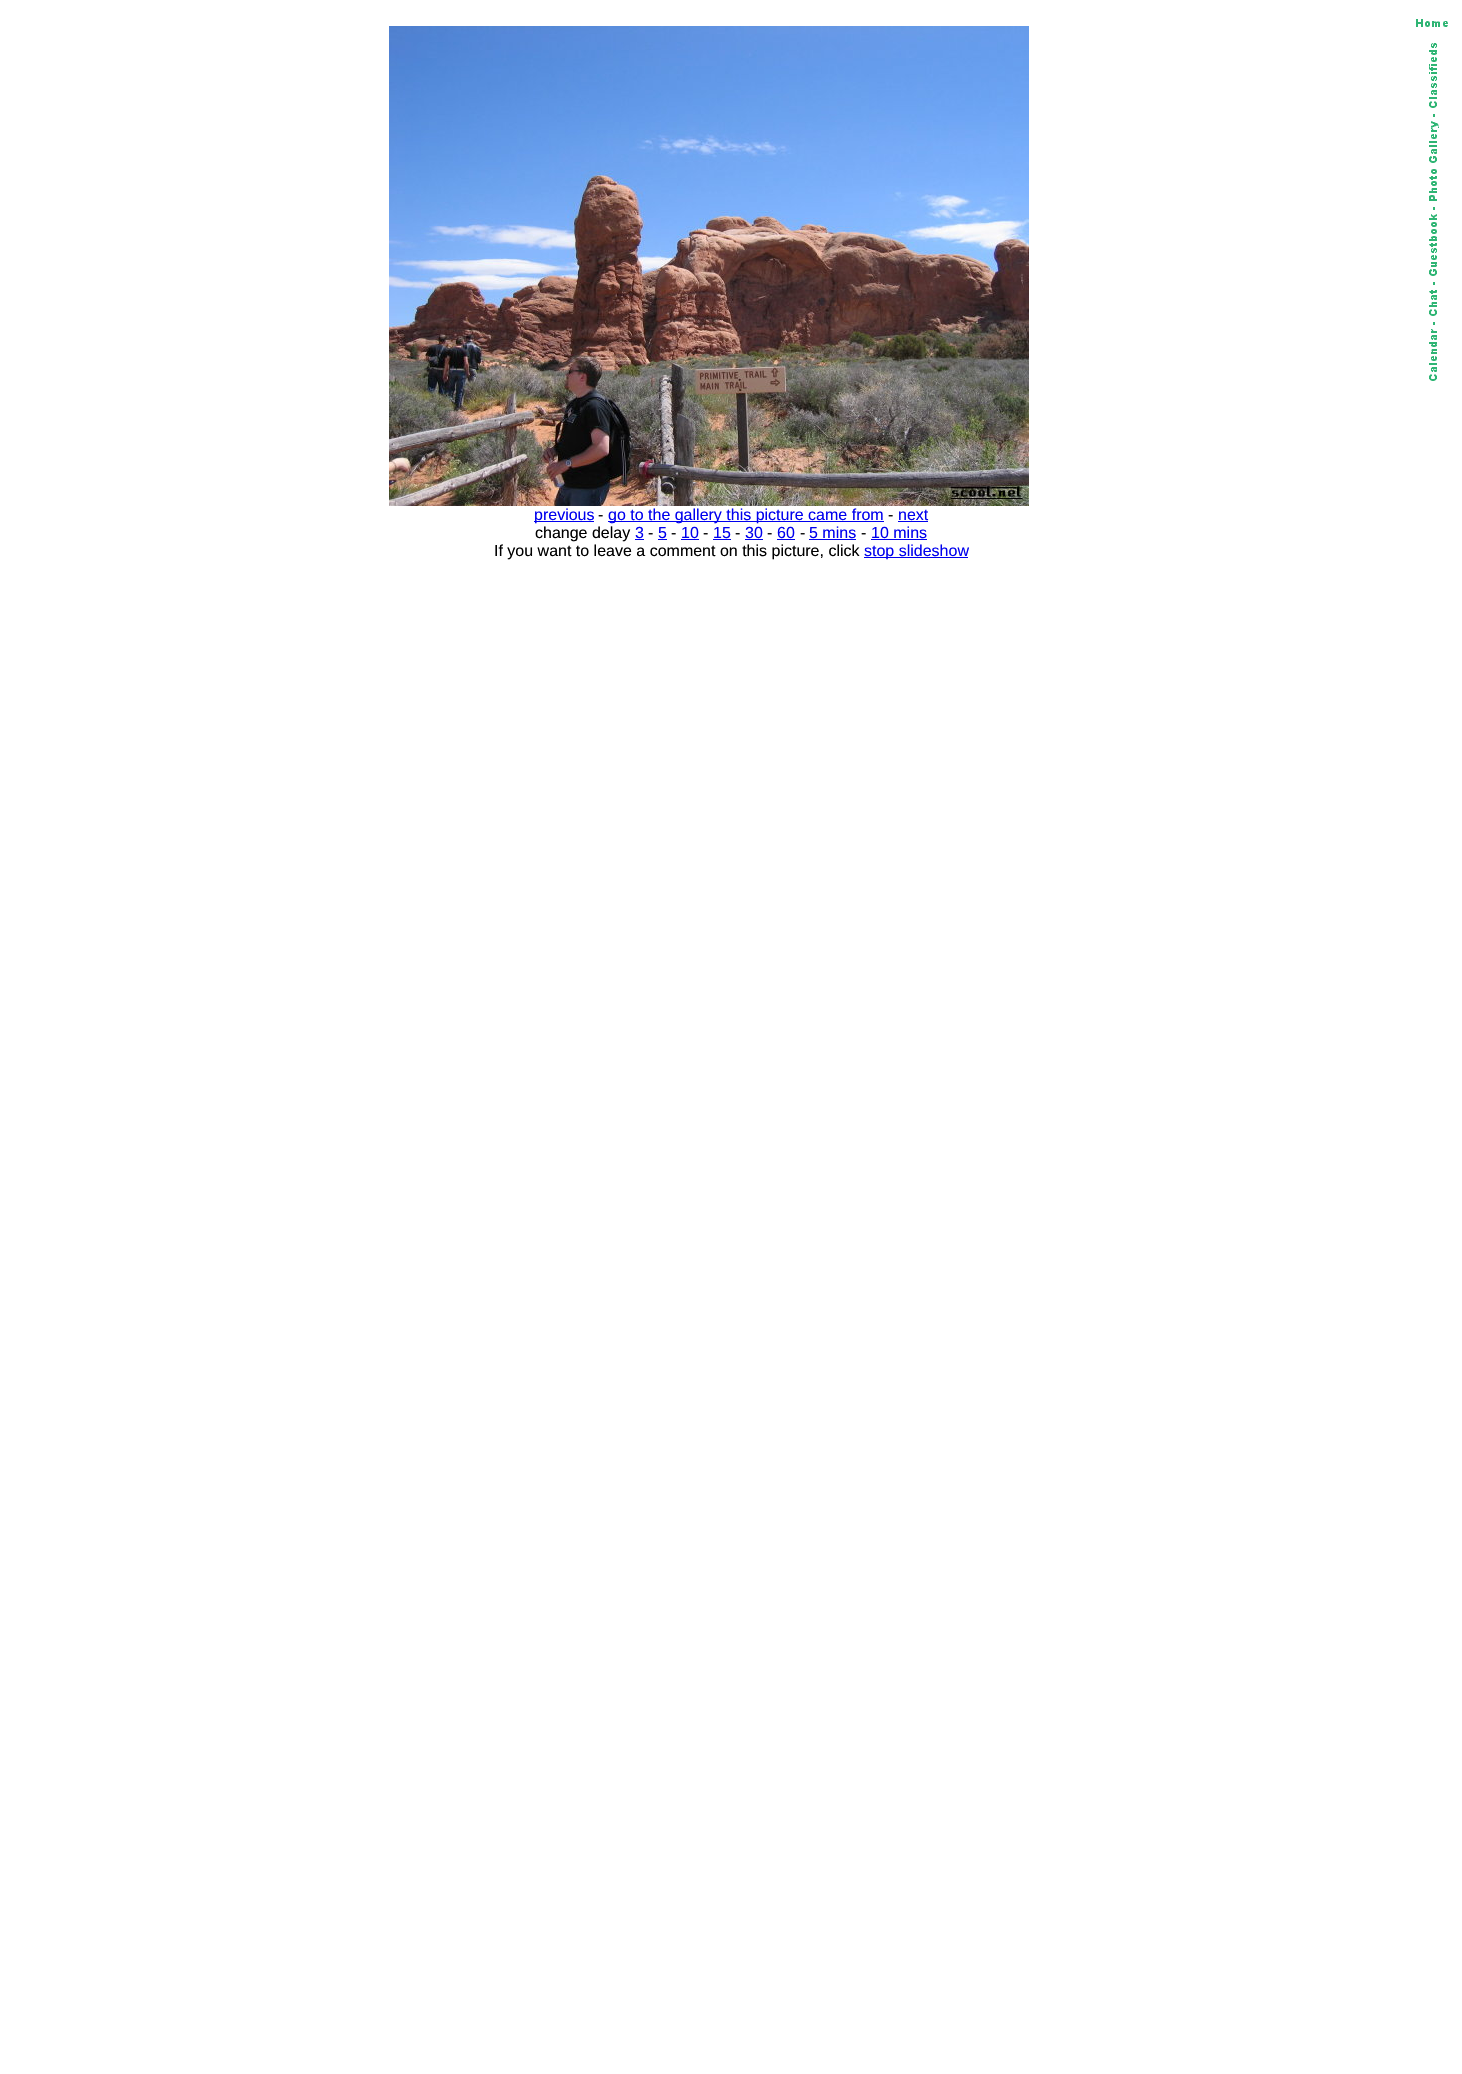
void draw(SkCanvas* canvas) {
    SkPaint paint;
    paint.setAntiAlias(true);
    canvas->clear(0xFFFFFFFF);
    canvas->drawImageRect(SkImages::DeferredFromEncodedData(SkData::MakeFromFileName("img1.png")), SkRect::MakeXYWH(1416, 19, 32, 8), SkSamplingOptions());
    canvas->drawImageRect(SkImages::DeferredFromEncodedData(SkData::MakeFromFileName("img2.png")), SkRect::MakeXYWH(1429, 43, 10, 338), SkSamplingOptions());
    canvas->drawImageRect(SkImages::DeferredFromEncodedData(SkData::MakeFromFileName("img3.png")), SkRect::MakeXYWH(389, 26, 640, 480), SkSamplingOptions());
    paint.setColor(0xFF0000EE);
    canvas->drawRect(SkRect::MakeXYWH(534, 521, 60, 1), paint);
    SkFont font1(fontMgr->matchFamilyStyle("Liberation Sans", SkFontStyle::Normal()), 16);
    font1.setSubpixel(true);
    canvas->drawString("previous", 534, 520, font1, paint);
    paint.setColor(0xFF000000);
    canvas->drawString("-", 598, 520, font1, paint);
    paint.setColor(0xFF0000EE);
    canvas->drawRect(SkRect::MakeXYWH(608, 521, 276, 1), paint);
    canvas->drawString("go to the gallery this picture came from", 608, 520, font1, paint);
    paint.setColor(0xFF000000);
    canvas->drawString("-", 888, 520, font1, paint);
    paint.setColor(0xFF0000EE);
    canvas->drawString("next", 898, 520, font1, paint);
    canvas->drawRect(SkRect::MakeXYWH(898, 521, 30, 1), paint);
    paint.setColor(0xFF000000);
    canvas->drawString("change delay", 535, 538, font1, paint);
    paint.setColor(0xFF0000EE);
    canvas->drawString("3", 635, 538, font1, paint);
    canvas->drawRect(SkRect::MakeXYWH(635, 539, 9, 1), paint);
    paint.setColor(0xFF000000);
    canvas->drawString("-", 648, 538, font1, paint);
    paint.setColor(0xFF0000EE);
    canvas->drawString("5", 658, 538, font1, paint);
    canvas->drawRect(SkRect::MakeXYWH(658, 539, 9, 1), paint);
    paint.setColor(0xFF000000);
    canvas->drawString("-", 671, 538, font1, paint);
    paint.setColor(0xFF0000EE);
    canvas->drawString("10", 681, 538, font1, paint);
    canvas->drawRect(SkRect::MakeXYWH(681, 539, 18, 1), paint);
    paint.setColor(0xFF000000);
    canvas->drawString("-", 703, 538, font1, paint);
    paint.setColor(0xFF0000EE);
    canvas->drawString("15", 713, 538, font1, paint);
    canvas->drawRect(SkRect::MakeXYWH(713, 539, 18, 1), paint);
    paint.setColor(0xFF000000);
    canvas->drawString("-", 735, 538, font1, paint);
    paint.setColor(0xFF0000EE);
    canvas->drawString("30", 745, 538, font1, paint);
    canvas->drawRect(SkRect::MakeXYWH(745, 539, 18, 1), paint);
    paint.setColor(0xFF000000);
    canvas->drawString("-", 767, 538, font1, paint);
    paint.setColor(0xFF0000EE);
    canvas->drawString("60", 777, 538, font1, paint);
    canvas->drawRect(SkRect::MakeXYWH(777, 539, 18, 1), paint);
    paint.setColor(0xFF000000);
    canvas->drawString("-", 800, 538, font1, paint);
    paint.setColor(0xFF0000EE);
    canvas->drawString("5 mins", 809, 538, font1, paint);
    canvas->drawRect(SkRect::MakeXYWH(809, 539, 47, 1), paint);
    paint.setColor(0xFF000000);
    canvas->drawString("-", 861, 538, font1, paint);
    paint.setColor(0xFF0000EE);
    canvas->drawString("10 mins", 871, 538, font1, paint);
    canvas->drawRect(SkRect::MakeXYWH(871, 539, 56, 1), paint);
    paint.setColor(0xFF000000);
    canvas->drawString("If you want to leave a comment on this picture, click", 494, 556, font1, paint);
    paint.setColor(0xFF0000EE);
    canvas->drawRect(SkRect::MakeXYWH(864, 557, 104, 1), paint);
    canvas->drawString("stop slideshow", 864, 556, font1, paint);
}
